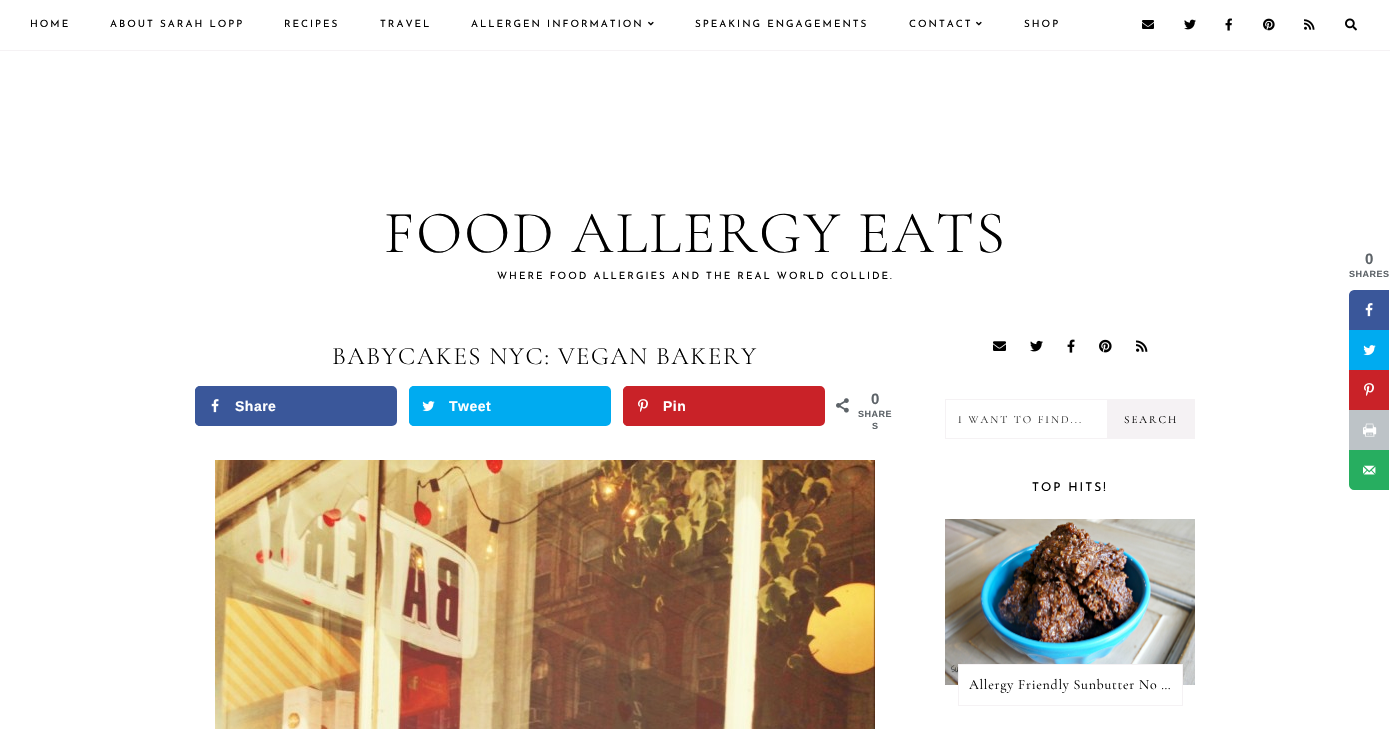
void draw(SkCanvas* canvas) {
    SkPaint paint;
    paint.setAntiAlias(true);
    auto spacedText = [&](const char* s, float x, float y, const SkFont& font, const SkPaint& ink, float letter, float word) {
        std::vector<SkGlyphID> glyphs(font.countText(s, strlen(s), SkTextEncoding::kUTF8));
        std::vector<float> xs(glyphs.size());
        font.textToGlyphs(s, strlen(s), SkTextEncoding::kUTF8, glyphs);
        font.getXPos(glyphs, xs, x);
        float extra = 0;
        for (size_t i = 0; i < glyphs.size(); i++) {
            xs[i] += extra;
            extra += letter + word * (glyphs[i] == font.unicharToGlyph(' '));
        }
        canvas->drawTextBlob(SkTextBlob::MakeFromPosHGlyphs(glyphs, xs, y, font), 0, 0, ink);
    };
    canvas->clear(0xFFFFFFFF);
    paint.setColor(0xFFF5F2F4);
    canvas->drawRect(SkRect::MakeXYWH(0, 50, 1390, 1), paint);
    SkFont font1(fontMgr->matchFamilyStyle("Josefin Sans", SkFontStyle::Normal()), 10);
    font1.setSubpixel(true);
    paint.setColor(0xFF000000);
    spacedText("HOME", 30, 27, font1, paint, 2, 0);
    spacedText("ABOUT SARAH LOPP", 110, 27, font1, paint, 2, 0);
    spacedText("RECIPES", 284, 27, font1, paint, 2, 0);
    spacedText("TRAVEL", 380, 27, font1, paint, 2, 0);
    spacedText("ALLERGEN INFORMATION", 471, 27, font1, paint, 2, 0);
    canvas->drawImageRect(SkImages::DeferredFromEncodedData(SkData::MakeFromFileName("img1.png")), SkRect::MakeXYWH(648, 21, 6, 5), SkSamplingOptions());
    spacedText("SPEAKING ENGAGEMENTS", 695, 27, font1, paint, 2, 0);
    spacedText("CONTACT", 909, 27, font1, paint, 2, 0);
    canvas->drawImageRect(SkImages::DeferredFromEncodedData(SkData::MakeFromFileName("img1.png")), SkRect::MakeXYWH(976, 21, 6, 5), SkSamplingOptions());
    spacedText("SHOP", 1024, 27, font1, paint, 2, 0);
    canvas->drawImageRect(SkImages::DeferredFromEncodedData(SkData::MakeFromFileName("img2.png")), SkRect::MakeXYWH(1142, 20, 12, 9), SkSamplingOptions());
    canvas->drawImageRect(SkImages::DeferredFromEncodedData(SkData::MakeFromFileName("img3.png")), SkRect::MakeXYWH(1184, 19, 12, 11), SkSamplingOptions());
    canvas->drawImageRect(SkImages::DeferredFromEncodedData(SkData::MakeFromFileName("img4.png")), SkRect::MakeXYWH(1225, 18, 7, 13), SkSamplingOptions());
    canvas->drawImageRect(SkImages::DeferredFromEncodedData(SkData::MakeFromFileName("img5.png")), SkRect::MakeXYWH(1263, 18, 12, 13), SkSamplingOptions());
    canvas->drawImageRect(SkImages::DeferredFromEncodedData(SkData::MakeFromFileName("img6.png")), SkRect::MakeXYWH(1304, 19, 11, 11), SkSamplingOptions());
    canvas->drawImageRect(SkImages::DeferredFromEncodedData(SkData::MakeFromFileName("img7.png")), SkRect::MakeXYWH(1345, 18, 12, 13), SkSamplingOptions());
    SkFont font2(fontMgr->matchFamilyStyle("Cormorant Garamond", SkFontStyle(300, SkFontStyle::kNormal_Width, SkFontStyle::kUpright_Slant)), 60);
    font2.setSubpixel(true);
    spacedText("FOOD ALLERGY EATS", 384, 252, font2, paint, 2, 0);
    spacedText("WHERE FOOD ALLERGIES AND THE REAL WORLD COLLIDE.", 497, 279, font1, paint, 2, 0);
    SkFont font3(fontMgr->matchFamilyStyle("Cormorant Garamond", SkFontStyle(300, SkFontStyle::kNormal_Width, SkFontStyle::kUpright_Slant)), 25);
    font3.setSubpixel(true);
    spacedText("BABYCAKES NYC: VEGAN BAKERY", 332, 364, font3, paint, 1.5f, 0);
    paint.setColor(0xFF3A579A);
    canvas->drawRoundRect(SkRect::MakeXYWH(196, 387, 200, 38), 4, 4, paint);
    paint.setStyle(SkPaint::kStroke_Style);
    paint.setStrokeWidth(2);
    canvas->drawRoundRect(SkRect::MakeXYWH(196, 387, 200, 38), 4, 4, paint);
    paint.setStyle(SkPaint::kFill_Style);
    canvas->drawPath(SkPathBuilder().moveTo(200, 387).lineTo(234, 387).lineTo(234, 425).lineTo(200, 425).cubicTo(198, 425, 196, 423, 196, 421).lineTo(196, 391).cubicTo(196, 389, 198, 387, 200, 387).close().detach(), paint);
    paint.setStyle(SkPaint::kStroke_Style);
    canvas->drawPath(SkPathBuilder().moveTo(200, 387).lineTo(234, 387).lineTo(234, 425).lineTo(200, 425).cubicTo(198, 425, 196, 423, 196, 421).lineTo(196, 391).cubicTo(196, 389, 198, 387, 200, 387).close().detach(), paint);
    canvas->drawImageRect(SkImages::DeferredFromEncodedData(SkData::MakeFromFileName("img8.png")), SkRect::MakeXYWH(211, 399, 8, 14), SkSamplingOptions());
    SkFont font4(fontMgr->matchFamilyStyle("Liberation Sans", SkFontStyle::Bold()), 14);
    font4.setSubpixel(true);
    paint.setStyle(SkPaint::kFill_Style);
    paint.setColor(0xFFFFFFFF);
    spacedText("Share", 235, 411, font4, paint, 0.5f, 0);
    paint.setColor(0xFF00ABF0);
    canvas->drawRoundRect(SkRect::MakeXYWH(410, 387, 200, 38), 4, 4, paint);
    paint.setStyle(SkPaint::kStroke_Style);
    canvas->drawRoundRect(SkRect::MakeXYWH(410, 387, 200, 38), 4, 4, paint);
    paint.setStyle(SkPaint::kFill_Style);
    canvas->drawPath(SkPathBuilder().moveTo(414, 387).lineTo(448, 387).lineTo(448, 425).lineTo(414, 425).cubicTo(412, 425, 410, 423, 410, 421).lineTo(410, 391).cubicTo(410, 389, 412, 387, 414, 387).close().detach(), paint);
    paint.setStyle(SkPaint::kStroke_Style);
    canvas->drawPath(SkPathBuilder().moveTo(414, 387).lineTo(448, 387).lineTo(448, 425).lineTo(414, 425).cubicTo(412, 425, 410, 423, 410, 421).lineTo(410, 391).cubicTo(410, 389, 412, 387, 414, 387).close().detach(), paint);
    canvas->drawImageRect(SkImages::DeferredFromEncodedData(SkData::MakeFromFileName("img9.png")), SkRect::MakeXYWH(422, 401, 13, 11), SkSamplingOptions());
    paint.setStyle(SkPaint::kFill_Style);
    paint.setColor(0xFFFFFFFF);
    spacedText("Tweet", 449, 411, font4, paint, 0.5f, 0);
    paint.setColor(0xFFC92228);
    canvas->drawRoundRect(SkRect::MakeXYWH(624, 387, 200, 38), 4, 4, paint);
    paint.setStyle(SkPaint::kStroke_Style);
    canvas->drawRoundRect(SkRect::MakeXYWH(624, 387, 200, 38), 4, 4, paint);
    paint.setStyle(SkPaint::kFill_Style);
    canvas->drawPath(SkPathBuilder().moveTo(628, 387).lineTo(662, 387).lineTo(662, 425).lineTo(628, 425).cubicTo(626, 425, 624, 423, 624, 421).lineTo(624, 391).cubicTo(624, 389, 626, 387, 628, 387).close().detach(), paint);
    paint.setStyle(SkPaint::kStroke_Style);
    canvas->drawPath(SkPathBuilder().moveTo(628, 387).lineTo(662, 387).lineTo(662, 425).lineTo(628, 425).cubicTo(626, 425, 624, 423, 624, 421).lineTo(624, 391).cubicTo(624, 389, 626, 387, 628, 387).close().detach(), paint);
    canvas->drawImageRect(SkImages::DeferredFromEncodedData(SkData::MakeFromFileName("img10.png")), SkRect::MakeXYWH(638, 399, 10, 13), SkSamplingOptions());
    paint.setStyle(SkPaint::kFill_Style);
    paint.setColor(0xFFFFFFFF);
    spacedText("Pin", 663, 411, font4, paint, 0.5f, 0);
    canvas->drawImageRect(SkImages::DeferredFromEncodedData(SkData::MakeFromFileName("img11.png")), SkRect::MakeXYWH(836, 398, 13, 15), SkSamplingOptions());
    SkFont font5(fontMgr->matchFamilyStyle("Liberation Sans", SkFontStyle::Bold()), 15);
    font5.setSubpixel(true);
    paint.setColor(0xFF5D6368);
    spacedText("0", 871, 404, font5, paint, 0.5f, 0);
    SkFont font6(fontMgr->matchFamilyStyle("Liberation Sans", SkFontStyle::Bold()), 9);
    font6.setSubpixel(true);
    spacedText("SHARE", 858, 417, font6, paint, 0.5f, 0);
    spacedText("S", 872, 429, font6, paint, 0.5f, 0);
    canvas->drawImageRect(SkImages::DeferredFromEncodedData(SkData::MakeFromFileName("img12.png")), SkRect::MakeXYWH(215, 460, 660, 269), SkSamplingOptions());
    canvas->drawImageRect(SkImages::DeferredFromEncodedData(SkData::MakeFromFileName("img13.png")), SkRect::MakeXYWH(993, 341, 13, 10), SkSamplingOptions());
    canvas->drawImageRect(SkImages::DeferredFromEncodedData(SkData::MakeFromFileName("img14.png")), SkRect::MakeXYWH(1030, 340, 13, 12), SkSamplingOptions());
    canvas->drawImageRect(SkImages::DeferredFromEncodedData(SkData::MakeFromFileName("img15.png")), SkRect::MakeXYWH(1067, 339, 8, 14), SkSamplingOptions());
    canvas->drawImageRect(SkImages::DeferredFromEncodedData(SkData::MakeFromFileName("img16.png")), SkRect::MakeXYWH(1099, 339, 13, 14), SkSamplingOptions());
    canvas->drawImageRect(SkImages::DeferredFromEncodedData(SkData::MakeFromFileName("img17.png")), SkRect::MakeXYWH(1136, 340, 12, 12), SkSamplingOptions());
    paint.setStyle(SkPaint::kStroke_Style);
    paint.setStrokeWidth(1);
    paint.setColor(0xFFF5F2F4);
    canvas->drawRect(SkRect::MakeXYWH(945.5f, 399.5f, 162, 39), paint);
    SkFont font7(fontMgr->matchFamilyStyle("Cormorant Garamond", SkFontStyle::Normal()), 11);
    font7.setSubpixel(true);
    paint.setStyle(SkPaint::kFill_Style);
    paint.setColor(0xFF333333);
    spacedText("I WANT TO FIND...", 958, 423, font7, paint, 2, 0);
    paint.setColor(0xFFF5F2F4);
    canvas->drawRect(SkRect::MakeXYWH(1108, 399, 87, 40), paint);
    paint.setColor(0xFF000000);
    spacedText("SEARCH", 1124, 423, font7, paint, 2, 0);
    SkFont font8(fontMgr->matchFamilyStyle("Josefin Sans", SkFontStyle::Normal()), 12);
    font8.setSubpixel(true);
    spacedText("TOP HITS!", 1032, 491, font8, paint, 2, 0);
    canvas->drawImageRect(SkImages::DeferredFromEncodedData(SkData::MakeFromFileName("img18.png")), SkRect::MakeXYWH(945, 519, 250, 166), SkSamplingOptions());
    paint.setColor(0xFFFFFFFF);
    canvas->drawRect(SkRect::MakeXYWH(959, 665, 223, 20), paint);
    paint.setStyle(SkPaint::kStroke_Style);
    paint.setColor(0xFFF5F2F4);
    canvas->drawRect(SkRect::MakeXYWH(958.5f, 664.5f, 224, 41), paint);
    SkFont font9(fontMgr->matchFamilyStyle("Cormorant Garamond", SkFontStyle::Normal()), 14);
    font9.setSubpixel(true);
    paint.setStyle(SkPaint::kFill_Style);
    paint.setColor(0xFF000000);
    spacedText("Allergy Friendly Sunbutter No …", 969, 689, font9, paint, 0.7f, 0);
    paint.setColor(0xFF5D6368);
    spacedText("0", 1365, 264, font5, paint, 0.5f, 0);
    spacedText("SHARES", 1349, 277, font6, paint, 0.5f, 0);
    paint.setColor(0xFF3A579A);
    canvas->drawPath(SkPathBuilder().moveTo(1354, 291).lineTo(1388, 291).lineTo(1388, 329).lineTo(1350, 329).lineTo(1350, 295).cubicTo(1350, 293, 1352, 291, 1354, 291).close().detach(), paint);
    paint.setStyle(SkPaint::kStroke_Style);
    paint.setStrokeWidth(2);
    canvas->drawPath(SkPathBuilder().moveTo(1354, 291).lineTo(1388, 291).lineTo(1388, 329).lineTo(1350, 329).lineTo(1350, 295).cubicTo(1350, 293, 1352, 291, 1354, 291).close().detach(), paint);
    canvas->drawImageRect(SkImages::DeferredFromEncodedData(SkData::MakeFromFileName("img8.png")), SkRect::MakeXYWH(1365, 303, 8, 14), SkSamplingOptions());
    paint.setStyle(SkPaint::kFill_Style);
    paint.setColor(0xFF00ABF0);
    canvas->drawRect(SkRect::MakeXYWH(1349, 330, 40, 40), paint);
    canvas->drawImageRect(SkImages::DeferredFromEncodedData(SkData::MakeFromFileName("img9.png")), SkRect::MakeXYWH(1363, 345, 13, 11), SkSamplingOptions());
    paint.setColor(0xFFC92228);
    canvas->drawRect(SkRect::MakeXYWH(1349, 370, 40, 40), paint);
    canvas->drawImageRect(SkImages::DeferredFromEncodedData(SkData::MakeFromFileName("img10.png")), SkRect::MakeXYWH(1364, 383, 10, 13), SkSamplingOptions());
    paint.setColor(0xFFBDC3C7);
    canvas->drawRect(SkRect::MakeXYWH(1349, 410, 40, 40), paint);
    canvas->drawImageRect(SkImages::DeferredFromEncodedData(SkData::MakeFromFileName("img19.png")), SkRect::MakeXYWH(1363, 423, 14, 14), SkSamplingOptions());
    paint.setColor(0xFF27AE60);
    canvas->drawPath(SkPathBuilder().moveTo(1350, 451).lineTo(1388, 451).lineTo(1388, 489).lineTo(1354, 489).cubicTo(1352, 489, 1350, 487, 1350, 485).close().detach(), paint);
    paint.setStyle(SkPaint::kStroke_Style);
    canvas->drawPath(SkPathBuilder().moveTo(1350, 451).lineTo(1388, 451).lineTo(1388, 489).lineTo(1354, 489).cubicTo(1352, 489, 1350, 487, 1350, 485).close().detach(), paint);
    canvas->drawImageRect(SkImages::DeferredFromEncodedData(SkData::MakeFromFileName("img20.png")), SkRect::MakeXYWH(1363, 465, 13, 10), SkSamplingOptions());
}
